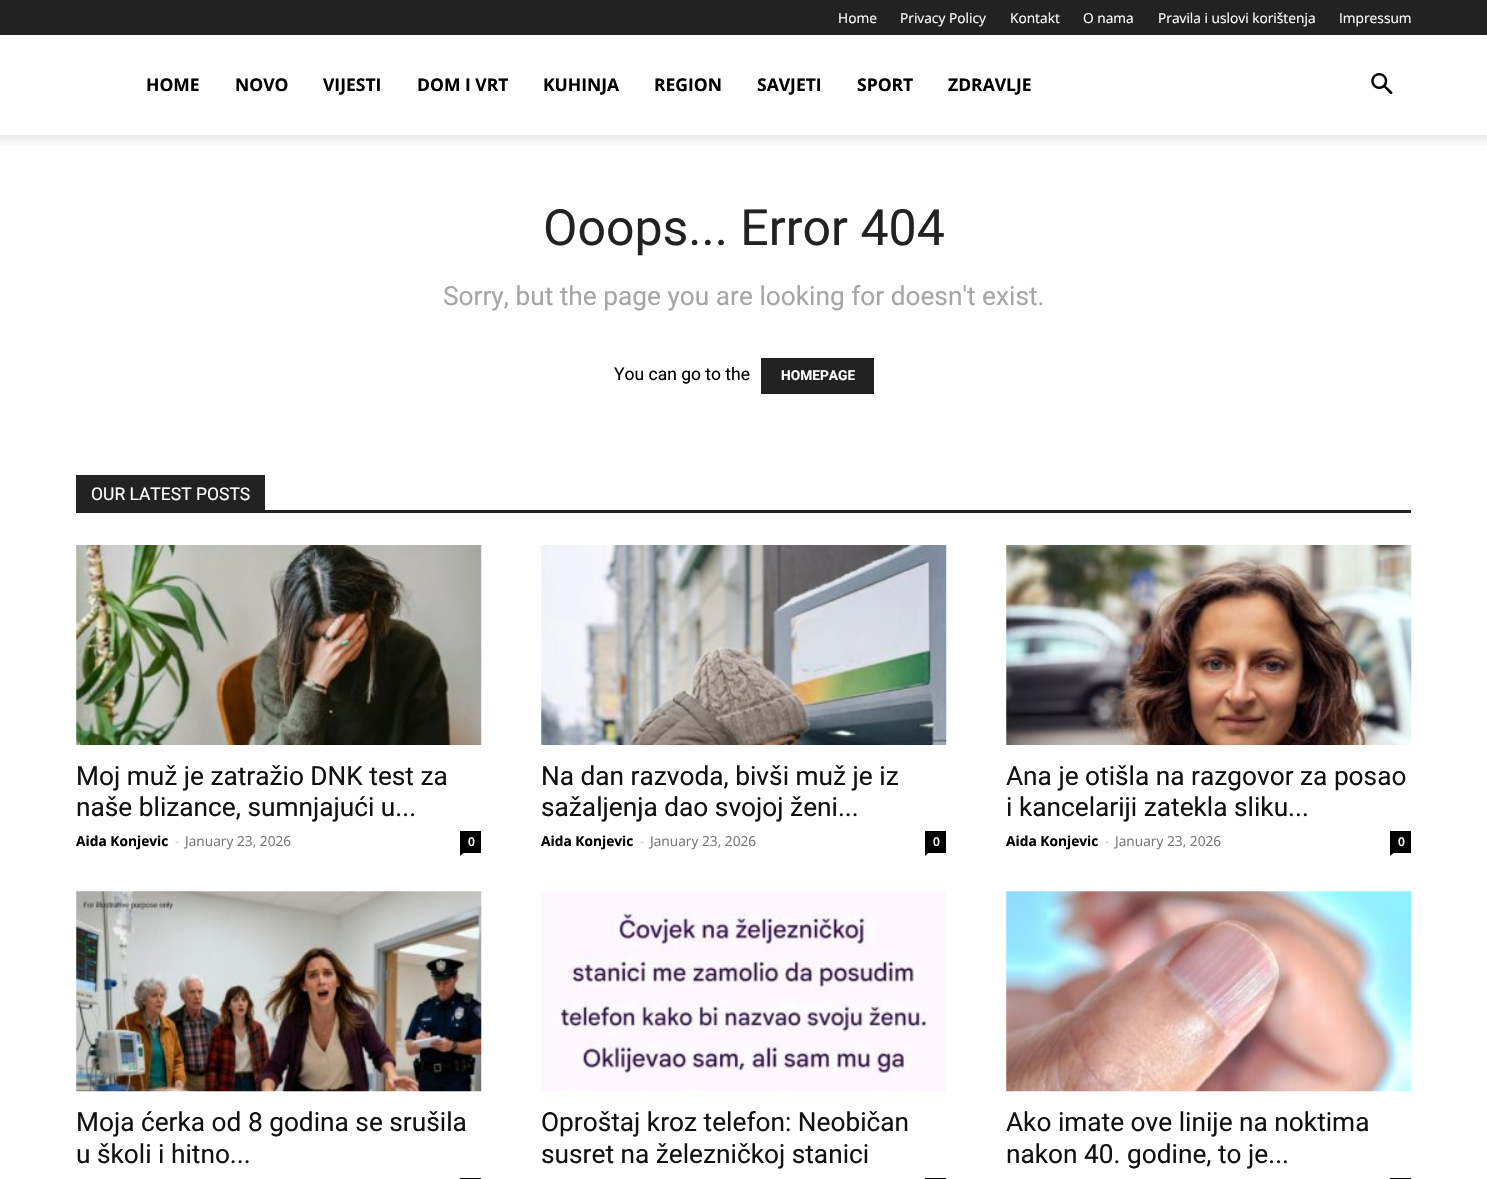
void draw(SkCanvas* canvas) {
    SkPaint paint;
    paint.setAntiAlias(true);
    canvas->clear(0xFFFFFFFF);
    paint.setColor(0xFF222222);
    canvas->drawRect(SkRect::MakeXYWH(0, 0, 1487, 35), paint);
    SkFont font1(fontMgr->matchFamilyStyle("Open Sans", SkFontStyle::Normal()), 13.75f);
    font1.setSubpixel(true);
    paint.setColor(0xFFFFFFFF);
    canvas->drawString("Home", 838, 23, font1, paint);
    canvas->drawString("Privacy Policy", 900, 23, font1, paint);
    canvas->drawString("Kontakt", 1010, 23, font1, paint);
    canvas->drawString("O nama", 1083, 23, font1, paint);
    canvas->drawString("Pravila i uslovi korištenja", 1158, 23, font1, paint);
    canvas->drawString("Impressum", 1339, 23, font1, paint);
    SkFont font2(fontMgr->matchFamilyStyle("Open Sans", SkFontStyle::Bold()), 17.5f);
    font2.setSubpixel(true);
    paint.setColor(0xFF000000);
    canvas->drawString("HOME", 146, 91, font2, paint);
    canvas->drawString("NOVO", 235, 91, font2, paint);
    canvas->drawString("VIJESTI", 323, 91, font2, paint);
    canvas->drawString("DOM I VRT", 417, 91, font2, paint);
    canvas->drawString("KUHINJA", 543, 91, font2, paint);
    canvas->drawString("REGION", 654, 91, font2, paint);
    canvas->drawString("SAVJETI", 757, 91, font2, paint);
    canvas->drawString("SPORT", 857, 91, font2, paint);
    canvas->drawString("ZDRAVLJE", 948, 91, font2, paint);
    canvas->drawImageRect(SkImages::DeferredFromEncodedData(SkData::MakeFromFileName("img1.png")), SkRect::MakeXYWH(1371, 73, 22, 22), SkSamplingOptions());
    canvas->drawImageRect(SkImages::DeferredFromEncodedData(SkData::MakeFromFileName("img2.png")), SkRect::MakeXYWH(0, 135, 1487, 11), SkSamplingOptions());
    SkFont font3(fontMgr->matchFamilyStyle("Roboto", SkFontStyle::Normal()), 50);
    font3.setSubpixel(true);
    paint.setColor(0xFF222222);
    canvas->drawString("Ooops... Error 404", 543, 245, font3, paint);
    SkFont font4(fontMgr->matchFamilyStyle("Roboto", SkFontStyle::Normal()), 26.25f);
    font4.setSubpixel(true);
    paint.setColor(0xFFA6A6A6);
    canvas->drawString("Sorry, but the page you are looking for doesn't exist.", 443, 305, font4, paint);
    SkFont font5(fontMgr->matchFamilyStyle("Roboto", SkFontStyle::Normal()), 17.5f);
    font5.setSubpixel(true);
    paint.setColor(0xFF000000);
    canvas->drawString("You can go to the", 614, 380, font5, paint);
    paint.setColor(0xFF222222);
    canvas->drawRect(SkRect::MakeXYWH(761, 358, 113, 36), paint);
    SkFont font6(fontMgr->matchFamilyStyle("Roboto", SkFontStyle::Bold()), 13.75f);
    font6.setSubpixel(true);
    paint.setColor(0xFFFFFFFF);
    canvas->drawString("HOMEPAGE", 781, 380, font6, paint);
    paint.setColor(0xFF222222);
    canvas->drawRect(SkRect::MakeXYWH(76, 510, 1335, 3), paint);
    canvas->drawRect(SkRect::MakeXYWH(76, 475, 189, 35), paint);
    paint.setColor(0xFFFFFFFF);
    canvas->drawString("OUR LATEST POSTS", 91, 500, font5, paint);
    canvas->drawImageRect(SkImages::DeferredFromEncodedData(SkData::MakeFromFileName("img3.png")), SkRect::MakeXYWH(76, 545, 406, 200), SkSamplingOptions());
    paint.setColor(0xFF111111);
    canvas->drawString("Moj muž je zatražio DNK test za", 76, 785, font4, paint);
    canvas->drawString("naše blizance, sumnjajući u...", 76, 816, font4, paint);
    SkFont font7(fontMgr->matchFamilyStyle("Open Sans", SkFontStyle::Bold()), 13.75f);
    font7.setSubpixel(true);
    paint.setColor(0xFF000000);
    canvas->drawString("Aida Konjevic", 76, 846, font7, paint);
    paint.setColor(0xFFCCCCCC);
    canvas->drawString("-", 175, 846, font1, paint);
    paint.setColor(0xFF767676);
    canvas->drawString("January 23, 2026", 185, 846, font1, paint);
    paint.setColor(0xFF000000);
    canvas->drawRect(SkRect::MakeXYWH(460, 831, 21, 22), paint);
    SkFont font8(fontMgr->matchFamilyStyle("Open Sans", SkFontStyle(600, SkFontStyle::kNormal_Width, SkFontStyle::kUpright_Slant)), 12);
    font8.setSubpixel(true);
    paint.setColor(0xFFFFFFFF);
    canvas->drawString("0", 468, 846, font8, paint);
    paint.setColor(0xFF000000);
    canvas->drawPath(SkPathBuilder().moveTo(460, 852.5f).lineTo(464, 852.5f).lineTo(460, 856).close().detach(), paint);
    canvas->drawImageRect(SkImages::DeferredFromEncodedData(SkData::MakeFromFileName("img4.png")), SkRect::MakeXYWH(541, 545, 406, 200), SkSamplingOptions());
    paint.setColor(0xFF111111);
    canvas->drawString("Na dan razvoda, bivši muž je iz", 541, 785, font4, paint);
    canvas->drawString("sažaljenja dao svojoj ženi...", 541, 816, font4, paint);
    paint.setColor(0xFF000000);
    canvas->drawString("Aida Konjevic", 541, 846, font7, paint);
    paint.setColor(0xFFCCCCCC);
    canvas->drawString("-", 640, 846, font1, paint);
    paint.setColor(0xFF767676);
    canvas->drawString("January 23, 2026", 650, 846, font1, paint);
    paint.setColor(0xFF000000);
    canvas->drawRect(SkRect::MakeXYWH(925, 831, 21, 22), paint);
    paint.setColor(0xFFFFFFFF);
    canvas->drawString("0", 933, 846, font8, paint);
    paint.setColor(0xFF000000);
    canvas->drawPath(SkPathBuilder().moveTo(925, 852.5f).lineTo(929, 852.5f).lineTo(925, 856).close().detach(), paint);
    canvas->drawImageRect(SkImages::DeferredFromEncodedData(SkData::MakeFromFileName("img5.png")), SkRect::MakeXYWH(1006, 545, 406, 200), SkSamplingOptions());
    paint.setColor(0xFF111111);
    canvas->drawString("Ana je otišla na razgovor za posao", 1006, 785, font4, paint);
    canvas->drawString("i kancelariji zatekla sliku...", 1006, 816, font4, paint);
    paint.setColor(0xFF000000);
    canvas->drawString("Aida Konjevic", 1006, 846, font7, paint);
    paint.setColor(0xFFCCCCCC);
    canvas->drawString("-", 1105, 846, font1, paint);
    paint.setColor(0xFF767676);
    canvas->drawString("January 23, 2026", 1115, 846, font1, paint);
    paint.setColor(0xFF000000);
    canvas->drawRect(SkRect::MakeXYWH(1390, 831, 21, 22), paint);
    paint.setColor(0xFFFFFFFF);
    canvas->drawString("0", 1398, 846, font8, paint);
    paint.setColor(0xFF000000);
    canvas->drawPath(SkPathBuilder().moveTo(1390, 852.5f).lineTo(1394, 852.5f).lineTo(1390, 856).close().detach(), paint);
    canvas->drawImageRect(SkImages::DeferredFromEncodedData(SkData::MakeFromFileName("img6.png")), SkRect::MakeXYWH(76, 891, 406, 201), SkSamplingOptions());
    paint.setColor(0xFF111111);
    canvas->drawString("Moja ćerka od 8 godina se srušila", 76, 1131, font4, paint);
    canvas->drawString("u školi i hitno...", 76, 1163, font4, paint);
    paint.setColor(0xFF000000);
    canvas->drawRect(SkRect::MakeXYWH(460, 1178, 21, 1), paint);
    canvas->drawImageRect(SkImages::DeferredFromEncodedData(SkData::MakeFromFileName("img7.png")), SkRect::MakeXYWH(541, 891, 405, 200), SkSamplingOptions());
    paint.setColor(0xFF111111);
    canvas->drawString("Oproštaj kroz telefon: Neobičan", 541, 1131, font4, paint);
    canvas->drawString("susret na železničkoj stanici", 541, 1163, font4, paint);
    paint.setColor(0xFF000000);
    canvas->drawRect(SkRect::MakeXYWH(925, 1178, 21, 1), paint);
    canvas->drawImageRect(SkImages::DeferredFromEncodedData(SkData::MakeFromFileName("img8.png")), SkRect::MakeXYWH(1006, 891, 406, 201), SkSamplingOptions());
    paint.setColor(0xFF111111);
    canvas->drawString("Ako imate ove linije na noktima", 1006, 1131, font4, paint);
    canvas->drawString("nakon 40. godine, to je...", 1006, 1163, font4, paint);
    paint.setColor(0xFF000000);
    canvas->drawRect(SkRect::MakeXYWH(1390, 1178, 21, 1), paint);
}
